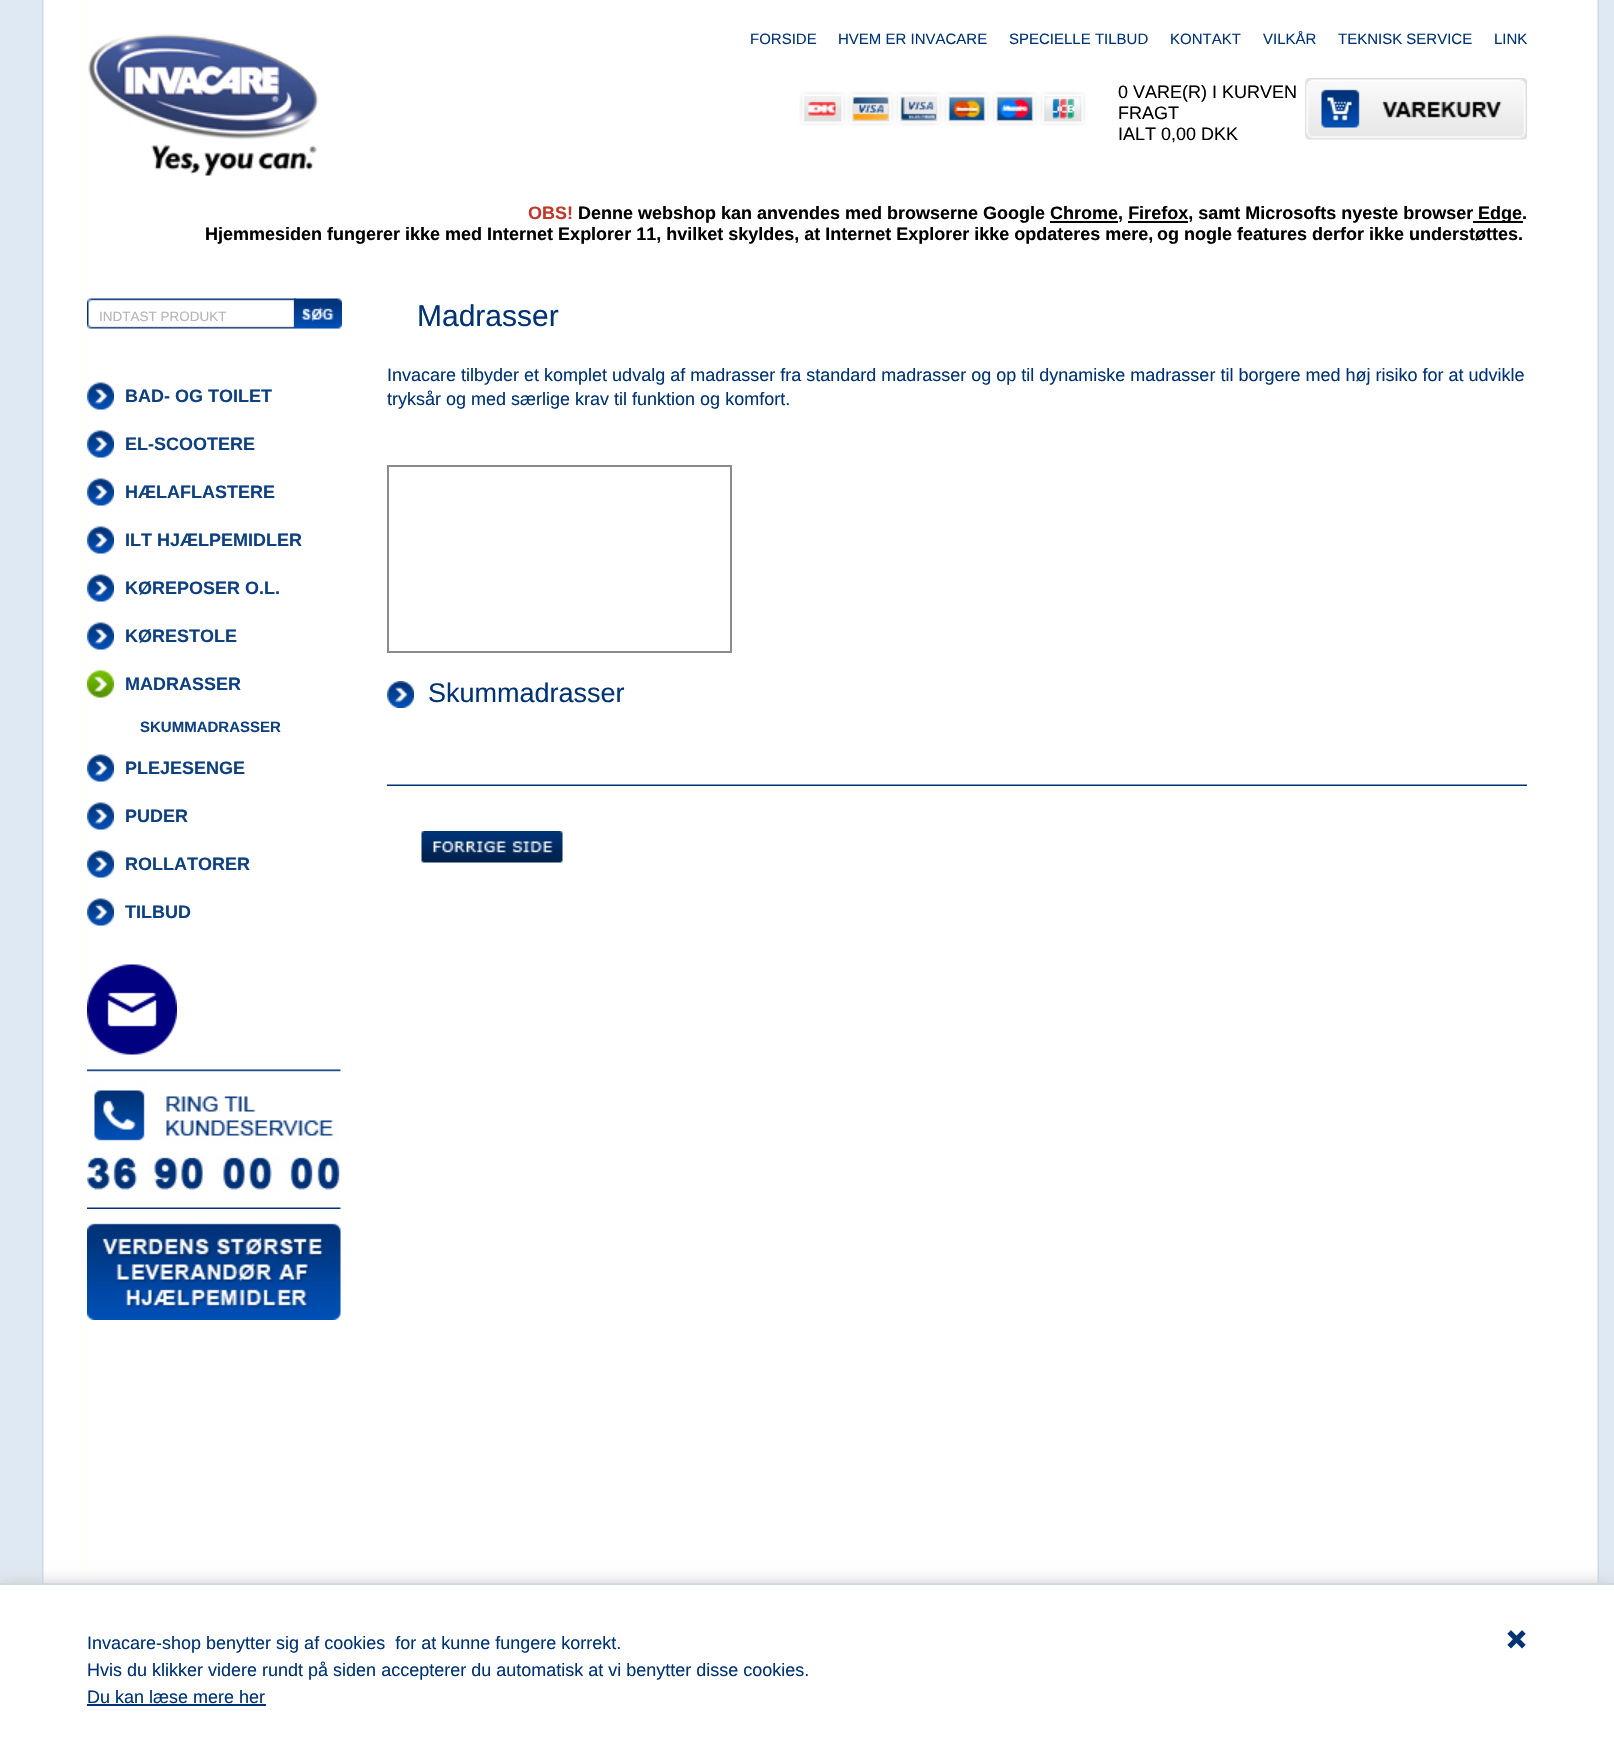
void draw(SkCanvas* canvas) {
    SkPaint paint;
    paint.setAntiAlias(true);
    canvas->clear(0xFFFFFFFF);
    paint.setColor(0xFFDFE9F3);
    canvas->drawRect(SkRect::MakeXYWH(0, 0, 42, 1583), paint);
    canvas->drawImageRect(SkImages::DeferredFromEncodedData(SkData::MakeFromFileName("img1.png")), SkRect::MakeXYWH(42, 0, 45, 1583), SkSamplingOptions());
    canvas->drawImageRect(SkImages::DeferredFromEncodedData(SkData::MakeFromFileName("img2.png")), SkRect::MakeXYWH(88, 34, 231, 142), SkSamplingOptions());
    SkFont font1(fontMgr->matchFamilyStyle("Liberation Sans", SkFontStyle::Normal()), 15);
    font1.setSubpixel(true);
    paint.setColor(0xFF003374);
    canvas->drawString("FORSIDE", 750, 44, font1, paint);
    canvas->drawString("HVEM ER INVACARE", 838, 44, font1, paint);
    canvas->drawString("SPECIELLE TILBUD", 1009, 44, font1, paint);
    canvas->drawString("KONTAKT", 1170, 44, font1, paint);
    canvas->drawString("VILKÅR", 1263, 44, font1, paint);
    canvas->drawString("TEKNISK SERVICE", 1338, 44, font1, paint);
    canvas->drawString("LINK", 1494, 44, font1, paint);
    canvas->drawImageRect(SkImages::DeferredFromEncodedData(SkData::MakeFromFileName("img3.png")), SkRect::MakeXYWH(799, 91, 287, 35), SkSamplingOptions());
    SkFont font2(fontMgr->matchFamilyStyle("Liberation Sans", SkFontStyle::Normal()), 18);
    font2.setSubpixel(true);
    paint.setColor(0xFF000000);
    canvas->drawString("0 VARE(R) I KURVEN", 1118, 98, font2, paint);
    canvas->drawString("FRAGT", 1118, 119, font2, paint);
    canvas->drawString("IALT 0,00 DKK", 1118, 140, font2, paint);
    canvas->drawImageRect(SkImages::DeferredFromEncodedData(SkData::MakeFromFileName("img4.png")), SkRect::MakeXYWH(1305, 78, 222, 62), SkSamplingOptions());
    SkFont font3(fontMgr->matchFamilyStyle("Liberation Sans", SkFontStyle::Bold()), 18);
    font3.setSubpixel(true);
    paint.setColor(0xFFC0392B);
    canvas->drawString("OBS!", 528, 219, font3, paint);
    paint.setColor(0xFF000000);
    canvas->drawString("Denne webshop kan anvendes med browserne Google Chrome, Firefox, samt Microsofts nyeste browser", 578, 219, font3, paint);
    canvas->drawRect(SkRect::MakeXYWH(1050, 221, 68, 2), paint);
    canvas->drawRect(SkRect::MakeXYWH(1128, 221, 60, 2), paint);
    canvas->drawRect(SkRect::MakeXYWH(1473, 221, 50, 2), paint);
    canvas->drawString("Edge.", 1478, 219, font3, paint);
    canvas->drawString("Hjemmesiden fungerer ikke med Internet Explorer 11, hvilket skyldes, at Internet Explorer ikke opdateres mere, og nogle features derfor ikke understøttes.", 205, 240, font3, paint);
    canvas->drawImageRect(SkImages::DeferredFromEncodedData(SkData::MakeFromFileName("img5.png")), SkRect::MakeXYWH(87, 298, 209, 31), SkSamplingOptions());
    SkFont font4(fontMgr->matchFamilyStyle("Liberation Sans", SkFontStyle::Normal()), 13.5f);
    font4.setSubpixel(true);
    paint.setColor(0xFFB5B5B5);
    canvas->drawString("INDTAST PRODUKT", 99, 321, font4, paint);
    paint.setColor(0xFFEFEFEF);
    canvas->drawRect(SkRect::MakeXYWH(294, 328, 48, 1), paint);
    canvas->drawImageRect(SkImages::DeferredFromEncodedData(SkData::MakeFromFileName("img6.png")), SkRect::MakeXYWH(294, 298, 48, 31), SkSamplingOptions());
    canvas->drawImageRect(SkImages::DeferredFromEncodedData(SkData::MakeFromFileName("img7.png")), SkRect::MakeXYWH(87, 382, 27, 28), SkSamplingOptions());
    paint.setColor(0xFF0F4180);
    canvas->drawString("BAD- OG TOILET", 125, 402, font3, paint);
    canvas->drawImageRect(SkImages::DeferredFromEncodedData(SkData::MakeFromFileName("img7.png")), SkRect::MakeXYWH(87, 430, 27, 28), SkSamplingOptions());
    canvas->drawString("EL-SCOOTERE", 125, 450, font3, paint);
    canvas->drawImageRect(SkImages::DeferredFromEncodedData(SkData::MakeFromFileName("img7.png")), SkRect::MakeXYWH(87, 478, 27, 28), SkSamplingOptions());
    canvas->drawString("HÆLAFLASTERE", 125, 498, font3, paint);
    canvas->drawImageRect(SkImages::DeferredFromEncodedData(SkData::MakeFromFileName("img7.png")), SkRect::MakeXYWH(87, 526, 27, 28), SkSamplingOptions());
    canvas->drawString("ILT HJÆLPEMIDLER", 125, 546, font3, paint);
    canvas->drawImageRect(SkImages::DeferredFromEncodedData(SkData::MakeFromFileName("img7.png")), SkRect::MakeXYWH(87, 574, 27, 28), SkSamplingOptions());
    canvas->drawString("KØREPOSER O.L.", 125, 594, font3, paint);
    canvas->drawImageRect(SkImages::DeferredFromEncodedData(SkData::MakeFromFileName("img7.png")), SkRect::MakeXYWH(87, 622, 27, 28), SkSamplingOptions());
    canvas->drawString("KØRESTOLE", 125, 642, font3, paint);
    canvas->drawImageRect(SkImages::DeferredFromEncodedData(SkData::MakeFromFileName("img8.png")), SkRect::MakeXYWH(87, 670, 27, 28), SkSamplingOptions());
    canvas->drawString("MADRASSER", 125, 690, font3, paint);
    SkFont font5(fontMgr->matchFamilyStyle("Liberation Sans", SkFontStyle::Bold()), 15);
    font5.setSubpixel(true);
    canvas->drawString("SKUMMADRASSER", 140, 732, font5, paint);
    canvas->drawImageRect(SkImages::DeferredFromEncodedData(SkData::MakeFromFileName("img7.png")), SkRect::MakeXYWH(87, 754, 27, 28), SkSamplingOptions());
    canvas->drawString("PLEJESENGE", 125, 774, font3, paint);
    canvas->drawImageRect(SkImages::DeferredFromEncodedData(SkData::MakeFromFileName("img7.png")), SkRect::MakeXYWH(87, 802, 27, 28), SkSamplingOptions());
    canvas->drawString("PUDER", 125, 822, font3, paint);
    canvas->drawImageRect(SkImages::DeferredFromEncodedData(SkData::MakeFromFileName("img7.png")), SkRect::MakeXYWH(87, 850, 27, 28), SkSamplingOptions());
    canvas->drawString("ROLLATORER", 125, 870, font3, paint);
    canvas->drawImageRect(SkImages::DeferredFromEncodedData(SkData::MakeFromFileName("img7.png")), SkRect::MakeXYWH(87, 898, 27, 28), SkSamplingOptions());
    canvas->drawString("TILBUD", 125, 918, font3, paint);
    canvas->drawImageRect(SkImages::DeferredFromEncodedData(SkData::MakeFromFileName("img9.png")), SkRect::MakeXYWH(87, 964, 90, 91), SkSamplingOptions());
    canvas->drawImageRect(SkImages::DeferredFromEncodedData(SkData::MakeFromFileName("img10.png")), SkRect::MakeXYWH(87, 1069, 254, 140), SkSamplingOptions());
    canvas->drawImageRect(SkImages::DeferredFromEncodedData(SkData::MakeFromFileName("img11.png")), SkRect::MakeXYWH(87, 1223, 254, 97), SkSamplingOptions());
    SkFont font6(fontMgr->matchFamilyStyle("Liberation Sans", SkFontStyle::Normal()), 30);
    font6.setSubpixel(true);
    paint.setColor(0xFF003374);
    canvas->drawString("Madrasser", 417, 326, font6, paint);
    canvas->drawString("Invacare tilbyder et komplet udvalg af madrasser fra standard madrasser og op til dynamiske madrasser til borgere med høj risiko for at udvikle", 387, 381, font2, paint);
    canvas->drawString("tryksår og med særlige krav til funktion og komfort.", 387, 405, font2, paint);
    paint.setStyle(SkPaint::kStroke_Style);
    paint.setStrokeWidth(2);
    paint.setColor(0xFF8B8B8B);
    canvas->drawRect(SkRect::MakeXYWH(388, 466, 343, 186), paint);
    canvas->drawImageRect(SkImages::DeferredFromEncodedData(SkData::MakeFromFileName("img12.png")), SkRect::MakeXYWH(387, 681, 27, 27), SkSamplingOptions());
    SkFont font7(fontMgr->matchFamilyStyle("Liberation Sans", SkFontStyle::Normal()), 27);
    font7.setSubpixel(true);
    paint.setStyle(SkPaint::kFill_Style);
    paint.setColor(0xFF003374);
    canvas->drawString("Skummadrasser", 428, 702, font7, paint);
    canvas->drawImageRect(SkImages::DeferredFromEncodedData(SkData::MakeFromFileName("img13.png")), SkRect::MakeXYWH(387, 784, 1140, 2), SkSamplingOptions());
    canvas->drawImageRect(SkImages::DeferredFromEncodedData(SkData::MakeFromFileName("img14.png")), SkRect::MakeXYWH(421, 831, 142, 32), SkSamplingOptions());
    paint.setColor(0xFFDFE9F3);
    canvas->drawRect(SkRect::MakeXYWH(1599, 0, 15, 1583), paint);
    canvas->drawImageRect(SkImages::DeferredFromEncodedData(SkData::MakeFromFileName("img15.png")), SkRect::MakeXYWH(1527, 0, 72, 1583), SkSamplingOptions());
    paint.setColor(0xFFCCCCCC);
    paint.setMaskFilter(SkMaskFilter::MakeBlur(kNormal_SkBlurStyle, 7.5f));
    canvas->drawRect(SkRect::MakeXYWH(0, 1583, 1614, 172), paint);
    paint.setMaskFilter(nullptr);
    paint.setColor(0xFFFFFFFF);
    canvas->drawRect(SkRect::MakeXYWH(0, 1585, 1614, 170), paint);
    paint.setColor(0xFFD0D9E2);
    canvas->drawRect(SkRect::MakeXYWH(0, 1583, 1614, 2), paint);
    paint.setColor(0xFF003374);
    canvas->drawString("Invacare-shop benytter sig af cookies  for at kunne fungere korrekt.", 87, 1649, font2, paint);
    canvas->drawString("Hvis du klikker videre rundt på siden accepterer du automatisk at vi benytter disse cookies.", 87, 1676, font2, paint);
    canvas->drawString("Du kan læse mere her", 87, 1703, font2, paint);
    canvas->drawRect(SkRect::MakeXYWH(87, 1704, 179, 2), paint);
    canvas->drawImageRect(SkImages::DeferredFromEncodedData(SkData::MakeFromFileName("img16.png")), SkRect::MakeXYWH(1507, 1630, 19, 19), SkSamplingOptions());
}
